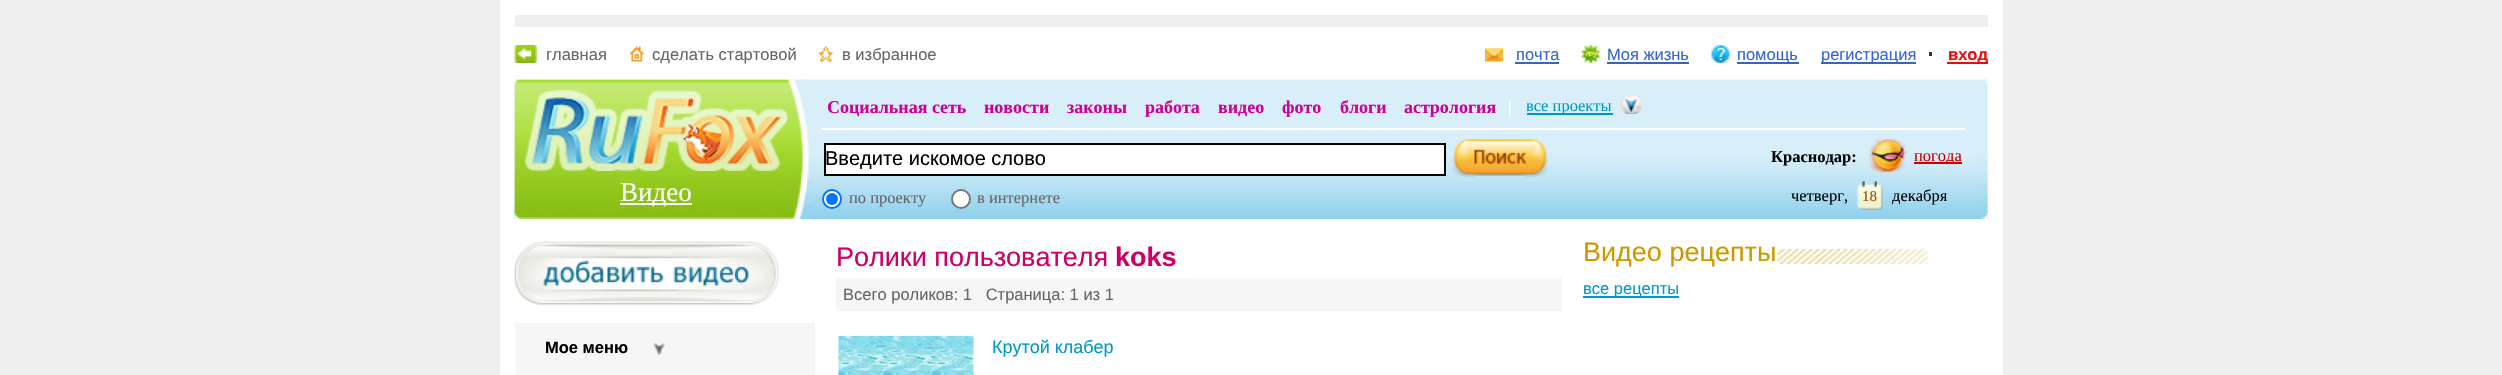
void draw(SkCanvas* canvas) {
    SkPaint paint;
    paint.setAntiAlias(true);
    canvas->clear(0xFFEEEEEE);
    paint.setColor(0xFFFFFFFF);
    canvas->drawRect(SkRect::MakeXYWH(500, 0, 1503, 375), paint);
    paint.setColor(0xFFEFEFEF);
    canvas->drawRect(SkRect::MakeXYWH(515, 15, 1473, 12), paint);
    canvas->drawImageRect(SkImages::DeferredFromEncodedData(SkData::MakeFromFileName("img1.png")), SkRect::MakeXYWH(514, 45, 23, 18), SkSamplingOptions());
    SkFont font1(fontMgr->matchFamilyStyle("Liberation Sans", SkFontStyle::Normal()), 16.5f);
    font1.setSubpixel(true);
    paint.setColor(0xFF666666);
    canvas->drawString("главная", 546, 60, font1, paint);
    canvas->drawImageRect(SkImages::DeferredFromEncodedData(SkData::MakeFromFileName("img2.png")), SkRect::MakeXYWH(630, 46, 14, 16), SkSamplingOptions());
    canvas->drawString("сделать стартовой", 652, 60, font1, paint);
    canvas->drawImageRect(SkImages::DeferredFromEncodedData(SkData::MakeFromFileName("img3.png")), SkRect::MakeXYWH(819, 46, 14, 16), SkSamplingOptions());
    canvas->drawString("в избранное", 842, 60, font1, paint);
    canvas->drawImageRect(SkImages::DeferredFromEncodedData(SkData::MakeFromFileName("img4.png")), SkRect::MakeXYWH(1485, 48, 18, 14), SkSamplingOptions());
    paint.setColor(0xFF3366CC);
    canvas->drawString("почта", 1516, 60, font1, paint);
    canvas->drawRect(SkRect::MakeXYWH(1515, 62, 44, 2), paint);
    canvas->drawImageRect(SkImages::DeferredFromEncodedData(SkData::MakeFromFileName("img5.png")), SkRect::MakeXYWH(1581, 45, 20, 18), SkSamplingOptions());
    canvas->drawString("Моя жизнь", 1607, 60, font1, paint);
    canvas->drawRect(SkRect::MakeXYWH(1607, 62, 82, 2), paint);
    canvas->drawImageRect(SkImages::DeferredFromEncodedData(SkData::MakeFromFileName("img6.png")), SkRect::MakeXYWH(1711, 45, 19, 18), SkSamplingOptions());
    canvas->drawRect(SkRect::MakeXYWH(1737, 62, 62, 2), paint);
    canvas->drawString("помощь", 1737, 60, font1, paint);
    canvas->drawRect(SkRect::MakeXYWH(1821, 62, 95, 2), paint);
    canvas->drawString("регистрация", 1821, 60, font1, paint);
    paint.setColor(0xFFF00B0B);
    canvas->drawRect(SkRect::MakeXYWH(1947, 62, 41, 2), paint);
    SkFont font2(fontMgr->matchFamilyStyle("Liberation Sans", SkFontStyle::Bold()), 16.5f);
    font2.setSubpixel(true);
    canvas->drawString("вход", 1948, 60, font2, paint);
    paint.setColor(0xFF333333);
    canvas->drawRect(SkRect::MakeXYWH(1929, 52, 3, 4), paint);
    canvas->drawImageRect(SkImages::DeferredFromEncodedData(SkData::MakeFromFileName("img7.png")), SkRect::MakeXYWH(514, 79, 1474, 140), SkSamplingOptions());
    canvas->drawImageRect(SkImages::DeferredFromEncodedData(SkData::MakeFromFileName("img8.png")), SkRect::MakeXYWH(514, 79, 296, 140), SkSamplingOptions());
    canvas->drawImageRect(SkImages::DeferredFromEncodedData(SkData::MakeFromFileName("img9.png")), SkRect::MakeXYWH(525, 90, 263, 81), SkSamplingOptions());
    paint.setColor(0xFFFFFFFF);
    canvas->drawRect(SkRect::MakeXYWH(620, 203, 72, 2), paint);
    SkFont font3(fontMgr->matchFamilyStyle("Liberation Serif", SkFontStyle::Normal()), 27);
    font3.setSubpixel(true);
    canvas->drawString("Видео", 620, 201, font3, paint);
    canvas->drawRect(SkRect::MakeXYWH(821, 128, 1144, 2), paint);
    SkFont font4(fontMgr->matchFamilyStyle("Liberation Serif", SkFontStyle::Bold()), 18);
    font4.setSubpixel(true);
    paint.setColor(0xFFCC0099);
    canvas->drawString("Социальная сеть", 827, 113, font4, paint);
    canvas->drawString("новости", 984, 113, font4, paint);
    canvas->drawString("законы", 1067, 113, font4, paint);
    canvas->drawString("работа", 1145, 113, font4, paint);
    canvas->drawString("видео", 1218, 113, font4, paint);
    canvas->drawString("фото", 1282, 113, font4, paint);
    canvas->drawString("блоги", 1340, 113, font4, paint);
    canvas->drawString("астрология", 1404, 113, font4, paint);
    canvas->drawImageRect(SkImages::DeferredFromEncodedData(SkData::MakeFromFileName("img10.png")), SkRect::MakeXYWH(1509, 100, 2, 17), SkSamplingOptions());
    paint.setColor(0xFF0099CC);
    canvas->drawRect(SkRect::MakeXYWH(1527, 113, 86, 2), paint);
    SkFont font5(fontMgr->matchFamilyStyle("Liberation Serif", SkFontStyle::Normal()), 16.5f);
    font5.setSubpixel(true);
    canvas->drawString("все проекты", 1526, 111, font5, paint);
    canvas->drawImageRect(SkImages::DeferredFromEncodedData(SkData::MakeFromFileName("img11.png")), SkRect::MakeXYWH(1620, 96, 23, 18), SkSamplingOptions());
    paint.setColor(0xFFFFFFFF);
    canvas->drawRect(SkRect::MakeXYWH(825, 144, 620, 31), paint);
    paint.setStyle(SkPaint::kStroke_Style);
    paint.setStrokeWidth(2);
    paint.setColor(0xFF000000);
    canvas->drawRect(SkRect::MakeXYWH(825, 144, 620, 31), paint);
    SkFont font6(fontMgr->matchFamilyStyle("Liberation Sans", SkFontStyle::Normal()), 20);
    font6.setSubpixel(true);
    paint.setStyle(SkPaint::kFill_Style);
    canvas->drawString("Введите искомое слово", 825, 165, font6, paint);
    canvas->drawImageRect(SkImages::DeferredFromEncodedData(SkData::MakeFromFileName("img12.png")), SkRect::MakeXYWH(1452, 139, 96, 38), SkSamplingOptions());
    paint.setColor(0xFFFFFFFF);
    canvas->drawCircle(832, 199, 9, paint);
    paint.setStyle(SkPaint::kStroke_Style);
    paint.setColor(0xFF0075FF);
    canvas->drawCircle(832, 199, 9, paint);
    paint.setStyle(SkPaint::kFill_Style);
    canvas->drawCircle(832, 199, 6, paint);
    paint.setColor(0xFF666666);
    canvas->drawString("по проекту", 849, 203, font5, paint);
    paint.setColor(0xFFFFFFFF);
    canvas->drawCircle(961, 199, 9, paint);
    paint.setStyle(SkPaint::kStroke_Style);
    paint.setColor(0xFF767676);
    canvas->drawCircle(961, 199, 9, paint);
    paint.setStyle(SkPaint::kFill_Style);
    paint.setColor(0xFF666666);
    canvas->drawString("в интернете", 977, 203, font5, paint);
    SkFont font7(fontMgr->matchFamilyStyle("Liberation Serif", SkFontStyle::Bold()), 16.5f);
    font7.setSubpixel(true);
    paint.setColor(0xFF000000);
    canvas->drawString("Краснодар:", 1771, 162, font7, paint);
    canvas->drawImageRect(SkImages::DeferredFromEncodedData(SkData::MakeFromFileName("img13.png")), SkRect::MakeXYWH(1869, 139, 39, 34), SkSamplingOptions());
    paint.setColor(0xFFCC0000);
    canvas->drawRect(SkRect::MakeXYWH(1914, 162, 48, 2), paint);
    canvas->drawString("погода", 1914, 161, font5, paint);
    paint.setColor(0xFF000000);
    canvas->drawString("четверг,", 1791, 201, font5, paint);
    canvas->drawImageRect(SkImages::DeferredFromEncodedData(SkData::MakeFromFileName("img14.png")), SkRect::MakeXYWH(1857, 181, 26, 29), SkSamplingOptions());
    SkFont font8(fontMgr->matchFamilyStyle("Liberation Serif", SkFontStyle::Normal()), 15);
    font8.setSubpixel(true);
    paint.setColor(0xFFA64607);
    canvas->drawString("18", 1862, 201, font8, paint);
    paint.setColor(0xFF000000);
    canvas->drawString("декабря", 1892, 201, font5, paint);
    canvas->drawImageRect(SkImages::DeferredFromEncodedData(SkData::MakeFromFileName("img15.png")), SkRect::MakeXYWH(1980, 79, 8, 140), SkSamplingOptions());
    canvas->drawImageRect(SkImages::DeferredFromEncodedData(SkData::MakeFromFileName("img16.png")), SkRect::MakeXYWH(514, 241, 265, 64), SkSamplingOptions());
    paint.setColor(0xFFF6F6F6);
    canvas->drawRect(SkRect::MakeXYWH(515, 323, 300, 52), paint);
    canvas->drawImageRect(SkImages::DeferredFromEncodedData(SkData::MakeFromFileName("img17.png")), SkRect::MakeXYWH(654, 343, 11, 13), SkSamplingOptions());
    paint.setColor(0xFF000000);
    canvas->drawString("Мое меню", 545, 353, font2, paint);
    SkFont font9(fontMgr->matchFamilyStyle("Liberation Sans", SkFontStyle::Normal()), 27);
    font9.setSubpixel(true);
    paint.setColor(0xFFCC0066);
    canvas->drawString("Ролики пользователя", 836, 266, font9, paint);
    SkFont font10(fontMgr->matchFamilyStyle("Liberation Sans", SkFontStyle::Bold()), 27);
    font10.setSubpixel(true);
    canvas->drawString("koks", 1115, 266, font10, paint);
    paint.setColor(0xFFF6F6F6);
    canvas->drawRect(SkRect::MakeXYWH(836, 278, 726, 33), paint);
    paint.setColor(0xFF666666);
    canvas->drawString("Всего роликов: 1   Страница: 1 из 1", 843, 300, font1, paint);
    canvas->drawImageRect(SkImages::DeferredFromEncodedData(SkData::MakeFromFileName("img18.png")), SkRect::MakeXYWH(838, 336, 136, 39), SkSamplingOptions());
    SkFont font11(fontMgr->matchFamilyStyle("Liberation Sans", SkFontStyle::Normal()), 18);
    font11.setSubpixel(true);
    paint.setColor(0xFF0099CC);
    canvas->drawString("Крутой клабер", 992, 353, font11, paint);
    canvas->drawImageRect(SkImages::DeferredFromEncodedData(SkData::MakeFromFileName("img19.png")), SkRect::MakeXYWH(1777, 249, 151, 15), SkSamplingOptions());
    paint.setColor(0xFFCC9900);
    canvas->drawString("Видео рецепты", 1583, 261, font9, paint);
    paint.setColor(0xFF0099CC);
    canvas->drawRect(SkRect::MakeXYWH(1583, 296, 96, 2), paint);
    canvas->drawString("все рецепты", 1583, 294, font1, paint);
}
